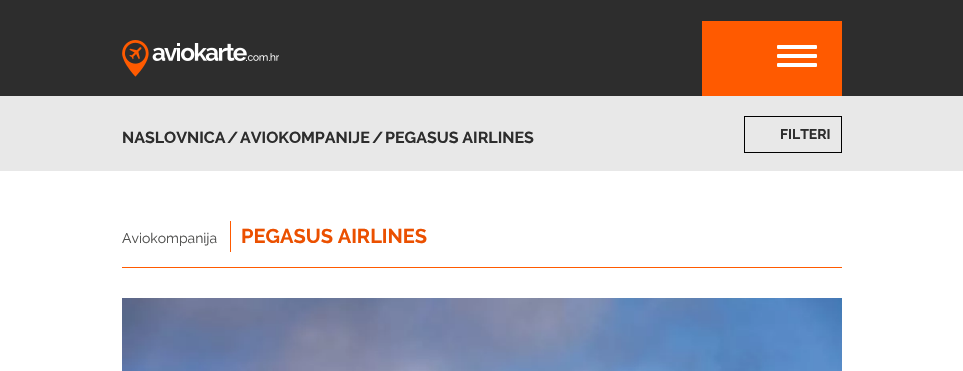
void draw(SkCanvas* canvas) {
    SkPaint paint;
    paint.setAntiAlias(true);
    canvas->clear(0xFFFFFFFF);
    paint.setColor(0xFF2D2D2D);
    canvas->drawRect(SkRect::MakeXYWH(0, 0, 963, 96), paint);
    canvas->drawImageRect(SkImages::DeferredFromEncodedData(SkData::MakeFromFileName("img1.png")), SkRect::MakeXYWH(122, 40, 157, 37), SkSamplingOptions());
    paint.setColor(0xFFFF5A00);
    canvas->drawRect(SkRect::MakeXYWH(702, 21, 140, 75), paint);
    paint.setColor(0xFFFFFFFF);
    canvas->drawRoundRect(SkRect::MakeXYWH(777, 45, 40, 4), 1, 1, paint);
    canvas->drawRoundRect(SkRect::MakeXYWH(777, 54, 40, 4), 1, 1, paint);
    canvas->drawRoundRect(SkRect::MakeXYWH(777, 63, 40, 4), 1, 1, paint);
    paint.setColor(0xFFE8E8E8);
    canvas->drawRect(SkRect::MakeXYWH(0, 96, 963, 75), paint);
    SkFont font1(fontMgr->matchFamilyStyle("Raleway", SkFontStyle::Bold()), 16);
    font1.setSubpixel(true);
    paint.setColor(0xFF2D2D2D);
    canvas->drawString("NASLOVNICA", 122, 143, font1, paint);
    canvas->drawString("/", 227, 143, font1, paint);
    canvas->drawString("AVIOKOMPANIJE", 240, 143, font1, paint);
    canvas->drawString("/", 372, 143, font1, paint);
    canvas->drawString("PEGASUS AIRLINES", 385, 143, font1, paint);
    paint.setStyle(SkPaint::kStroke_Style);
    paint.setStrokeWidth(1);
    paint.setColor(0xFF000000);
    canvas->drawRect(SkRect::MakeXYWH(744.5f, 116.5f, 97, 36), paint);
    SkFont font2(fontMgr->matchFamilyStyle("Raleway", SkFontStyle::Bold()), 14);
    font2.setSubpixel(true);
    paint.setStyle(SkPaint::kFill_Style);
    paint.setColor(0xFF2D2D2D);
    canvas->drawString("FILTERI", 780, 139, font2, paint);
    paint.setColor(0xFFFF5A00);
    canvas->drawRect(SkRect::MakeXYWH(122, 267, 720, 1), paint);
    SkFont font3(fontMgr->matchFamilyStyle("Raleway", SkFontStyle::Normal()), 14);
    font3.setSubpixel(true);
    paint.setColor(0xFF4F4F4E);
    canvas->drawString("Aviokompanija", 122, 243, font3, paint);
    paint.setColor(0xFFFF5A00);
    canvas->drawRect(SkRect::MakeXYWH(230, 221, 1, 31), paint);
    SkFont font4(fontMgr->matchFamilyStyle("Raleway", SkFontStyle::Bold()), 20);
    font4.setSubpixel(true);
    paint.setColor(0xFFEB5000);
    canvas->drawString("PEGASUS AIRLINES", 241, 243, font4, paint);
    canvas->drawImageRect(SkImages::DeferredFromEncodedData(SkData::MakeFromFileName("img2.png")), SkRect::MakeXYWH(122, 298, 720, 73), SkSamplingOptions());
}
